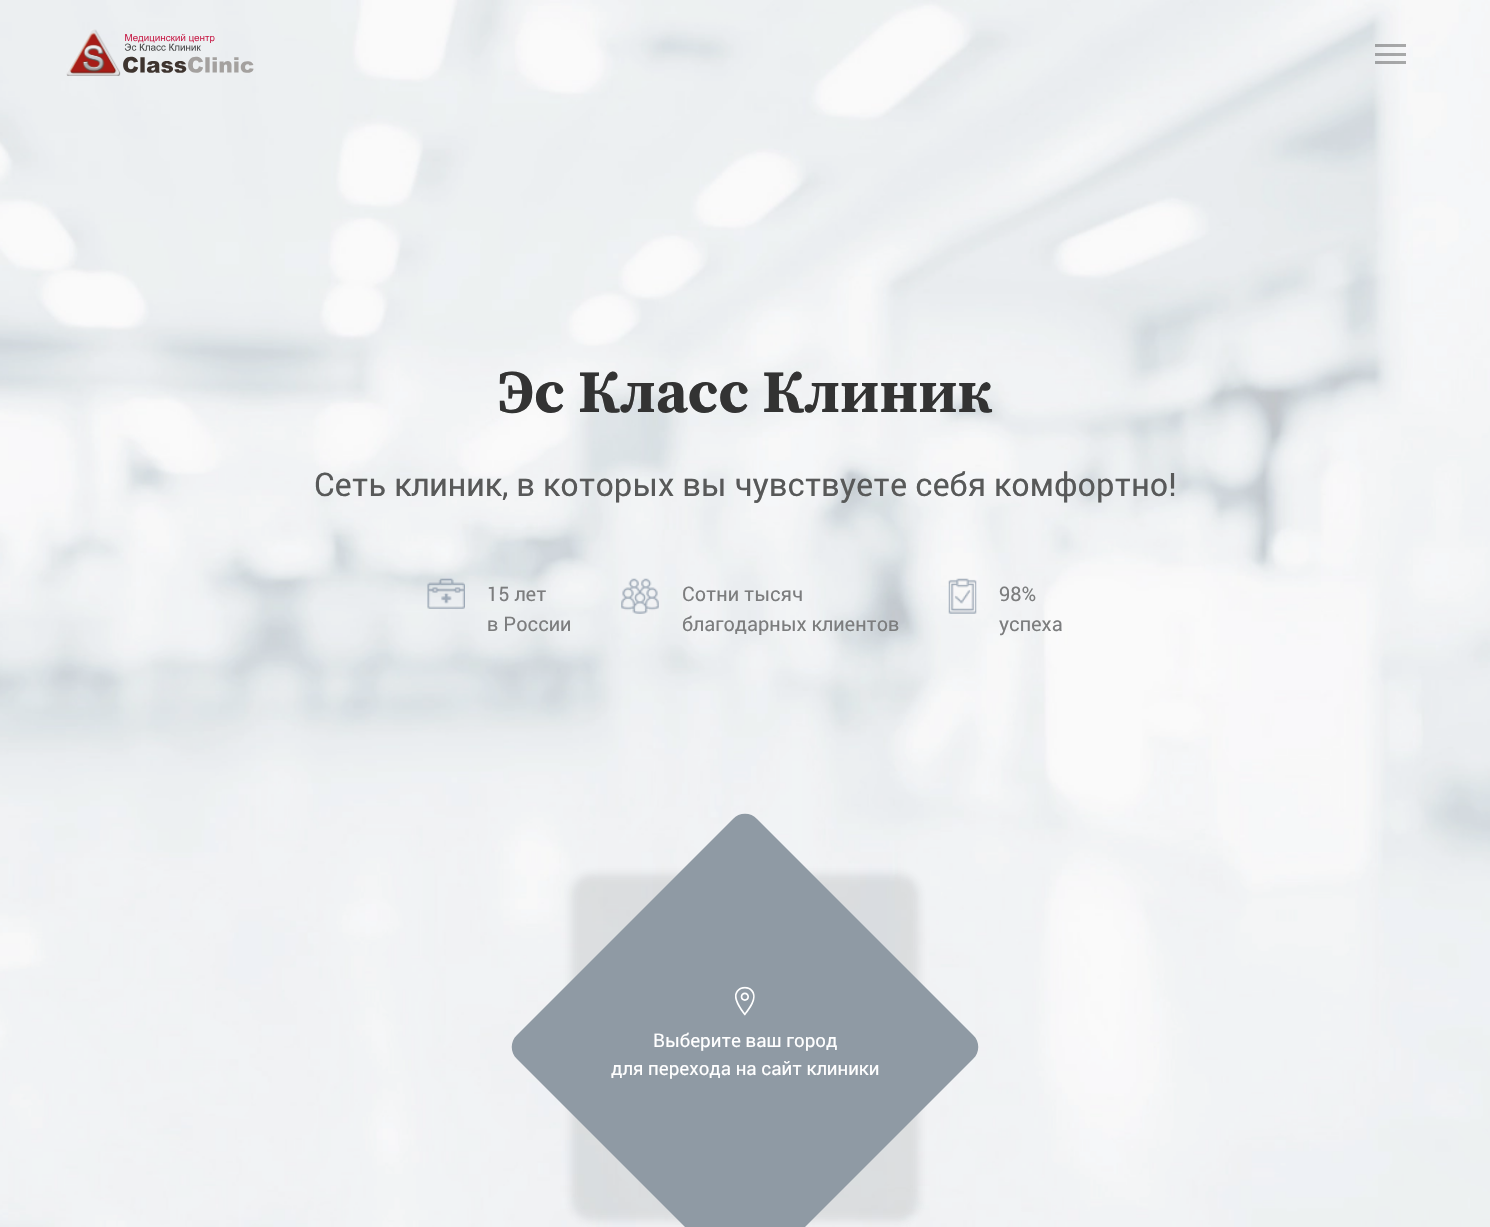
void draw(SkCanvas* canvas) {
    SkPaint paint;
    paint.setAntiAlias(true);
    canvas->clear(0xFFFFFFFF);
    canvas->drawImageRect(SkImages::DeferredFromEncodedData(SkData::MakeFromFileName("img1.png")), SkRect::MakeXYWH(0, 0, 1490, 1227), SkSamplingOptions());
    canvas->drawImageRect(SkImages::DeferredFromEncodedData(SkData::MakeFromFileName("img2.png")), SkRect::MakeXYWH(66, 29, 188, 47), SkSamplingOptions());
    paint.setColor(0x66333333);
    canvas->drawRect(SkRect::MakeXYWH(1375, 53, 31, 3), paint);
    canvas->drawRect(SkRect::MakeXYWH(1375, 44, 31, 3), paint);
    canvas->drawRect(SkRect::MakeXYWH(1375, 61, 31, 3), paint);
    SkFont font1(fontMgr->matchFamilyStyle("Source Serif Pro", SkFontStyle::Bold()), 60);
    font1.setSubpixel(true);
    paint.setColor(0xFF333333);
    canvas->drawString("Эс Класс Клиник", 498, 412, font1, paint);
    SkFont font2(fontMgr->matchFamilyStyle("Roboto", SkFontStyle::Normal()), 32.5f);
    font2.setSubpixel(true);
    paint.setColor(0xFF585959);
    canvas->drawString("Cеть клиник, в которых вы чувствуете себя комфортно!", 314, 496, font2, paint);
    canvas->drawImageRect(SkImages::DeferredFromEncodedData(SkData::MakeFromFileName("img3.png")), SkRect::MakeXYWH(427, 578, 38, 31), SkSamplingOptions());
    SkFont font3(fontMgr->matchFamilyStyle("Roboto", SkFontStyle::Normal()), 20);
    font3.setSubpixel(true);
    paint.setColor(0xFF7C7D7E);
    canvas->drawString("15 лет", 487, 601, font3, paint);
    canvas->drawString("в России", 487, 631, font3, paint);
    canvas->drawImageRect(SkImages::DeferredFromEncodedData(SkData::MakeFromFileName("img4.png")), SkRect::MakeXYWH(621, 578, 38, 36), SkSamplingOptions());
    canvas->drawString("Cотни тысяч", 682, 601, font3, paint);
    canvas->drawString("благодарных клиентов", 682, 631, font3, paint);
    canvas->drawImageRect(SkImages::DeferredFromEncodedData(SkData::MakeFromFileName("img5.png")), SkRect::MakeXYWH(948, 578, 29, 36), SkSamplingOptions());
    canvas->drawString("98%", 999, 601, font3, paint);
    canvas->drawString("успеха", 999, 631, font3, paint);
    paint.setColor(0x1F42464B);
    paint.setMaskFilter(SkMaskFilter::MakeBlur(kNormal_SkBlurStyle, 4));
    canvas->drawRoundRect(SkRect::MakeXYWH(571, 874, 348, 347), 21, 21, paint);
    paint.setMaskFilter(nullptr);
    paint.setColor(0xFF8F9AA4);
    canvas->drawPath(SkPathBuilder().moveTo(757, 819).lineTo(973, 1035).cubicTo(980, 1041, 980, 1053, 973, 1059).lineTo(757, 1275).cubicTo(751, 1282, 739, 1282, 733, 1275).lineTo(517, 1059).cubicTo(510, 1053, 510, 1041, 517, 1035).lineTo(733, 819).cubicTo(739, 812, 751, 812, 757, 819).close().detach(), paint);
    canvas->drawImageRect(SkImages::DeferredFromEncodedData(SkData::MakeFromFileName("img6.png")), SkRect::MakeXYWH(735, 986, 20, 30), SkSamplingOptions());
    SkFont font4(fontMgr->matchFamilyStyle("Roboto", SkFontStyle::Normal()), 18.75f);
    font4.setSubpixel(true);
    paint.setColor(0xFFFFFFFF);
    canvas->drawString("Выберите ваш город", 653, 1047, font4, paint);
    canvas->drawString("для перехода на сайт клиники", 611, 1075, font4, paint);
}
